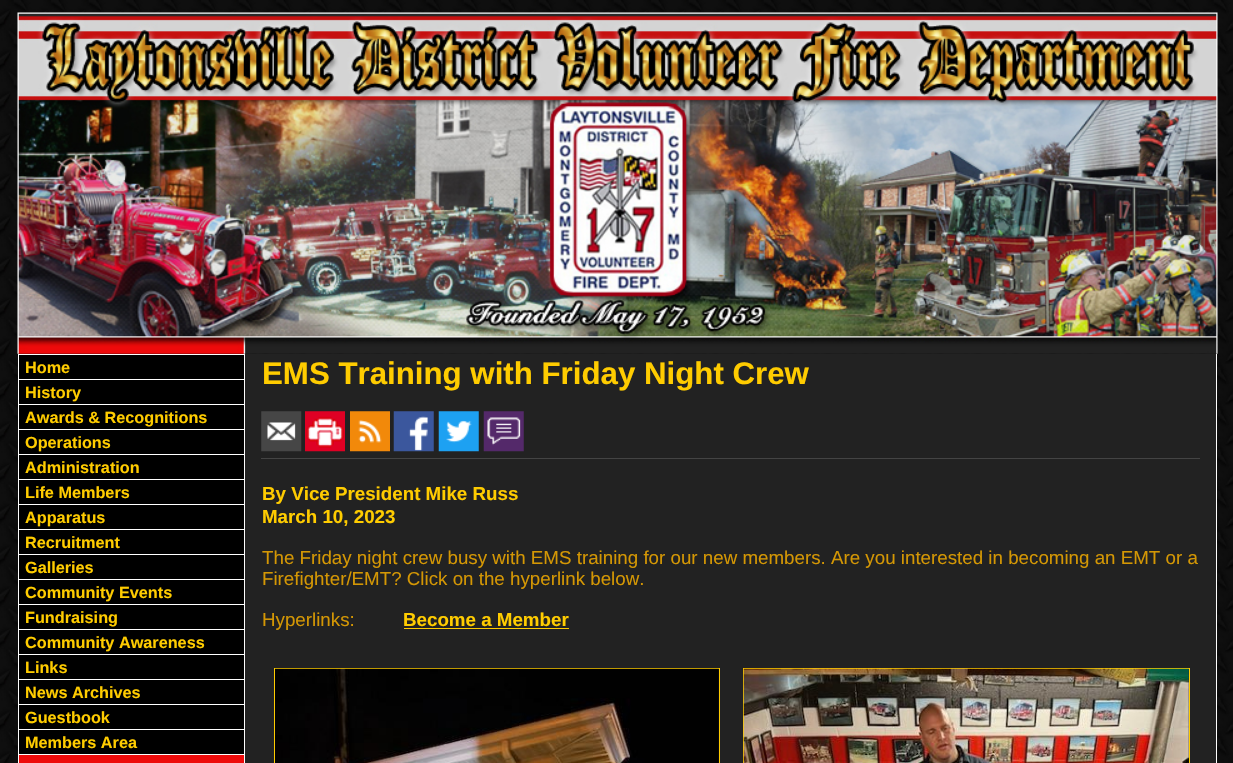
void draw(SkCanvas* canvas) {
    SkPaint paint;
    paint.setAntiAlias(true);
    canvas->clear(0xFFFFFFFF);
    canvas->drawImageRect(SkImages::DeferredFromEncodedData(SkData::MakeFromFileName("img1.png")), SkRect::MakeXYWH(0, 0, 1233, 763), SkSamplingOptions());
    canvas->drawImageRect(SkImages::DeferredFromEncodedData(SkData::MakeFromFileName("img2.png")), SkRect::MakeXYWH(17, 12, 1201, 342), SkSamplingOptions());
    paint.setColor(0xFFFFFFFF);
    canvas->drawRect(SkRect::MakeXYWH(18, 354, 1, 409), paint);
    paint.setColor(0xFFEE0A0A);
    canvas->drawRect(SkRect::MakeXYWH(19, 755, 225, 8), paint);
    paint.setColor(0xFFFFFFFF);
    canvas->drawRect(SkRect::MakeXYWH(19, 354, 225, 1), paint);
    paint.setColor(0xFF000000);
    canvas->drawRect(SkRect::MakeXYWH(19, 355, 225, 399), paint);
    SkFont font1(fontMgr->matchFamilyStyle("Liberation Sans", SkFontStyle::Bold()), 16.25f);
    font1.setSubpixel(true);
    paint.setColor(0xFFFFCC00);
    canvas->drawString("Home", 25, 373, font1, paint);
    paint.setColor(0xFFFFFFFF);
    canvas->drawRect(SkRect::MakeXYWH(19, 379, 225, 1), paint);
    paint.setColor(0xFFFFCC00);
    canvas->drawString("History", 25, 398, font1, paint);
    paint.setColor(0xFFFFFFFF);
    canvas->drawRect(SkRect::MakeXYWH(19, 404, 225, 1), paint);
    paint.setColor(0xFFFFCC00);
    canvas->drawString("Awards & Recognitions", 25, 423, font1, paint);
    paint.setColor(0xFFFFFFFF);
    canvas->drawRect(SkRect::MakeXYWH(19, 429, 225, 1), paint);
    paint.setColor(0xFFFFCC00);
    canvas->drawString("Operations", 25, 448, font1, paint);
    paint.setColor(0xFFFFFFFF);
    canvas->drawRect(SkRect::MakeXYWH(19, 454, 225, 1), paint);
    paint.setColor(0xFFFFCC00);
    canvas->drawString("Administration", 25, 473, font1, paint);
    paint.setColor(0xFFFFFFFF);
    canvas->drawRect(SkRect::MakeXYWH(19, 479, 225, 1), paint);
    paint.setColor(0xFFFFCC00);
    canvas->drawString("Life Members", 25, 498, font1, paint);
    paint.setColor(0xFFFFFFFF);
    canvas->drawRect(SkRect::MakeXYWH(19, 504, 225, 1), paint);
    paint.setColor(0xFFFFCC00);
    canvas->drawString("Apparatus", 25, 523, font1, paint);
    paint.setColor(0xFFFFFFFF);
    canvas->drawRect(SkRect::MakeXYWH(19, 529, 225, 1), paint);
    paint.setColor(0xFFFFCC00);
    canvas->drawString("Recruitment", 25, 548, font1, paint);
    paint.setColor(0xFFFFFFFF);
    canvas->drawRect(SkRect::MakeXYWH(19, 554, 225, 1), paint);
    paint.setColor(0xFFFFCC00);
    canvas->drawString("Galleries", 25, 573, font1, paint);
    paint.setColor(0xFFFFFFFF);
    canvas->drawRect(SkRect::MakeXYWH(19, 579, 225, 1), paint);
    paint.setColor(0xFFFFCC00);
    canvas->drawString("Community Events", 25, 598, font1, paint);
    paint.setColor(0xFFFFFFFF);
    canvas->drawRect(SkRect::MakeXYWH(19, 604, 225, 1), paint);
    paint.setColor(0xFFFFCC00);
    canvas->drawString("Fundraising", 25, 623, font1, paint);
    paint.setColor(0xFFFFFFFF);
    canvas->drawRect(SkRect::MakeXYWH(19, 629, 225, 1), paint);
    paint.setColor(0xFFFFCC00);
    canvas->drawString("Community Awareness", 25, 648, font1, paint);
    paint.setColor(0xFFFFFFFF);
    canvas->drawRect(SkRect::MakeXYWH(19, 654, 225, 1), paint);
    paint.setColor(0xFFFFCC00);
    canvas->drawString("Links", 25, 673, font1, paint);
    paint.setColor(0xFFFFFFFF);
    canvas->drawRect(SkRect::MakeXYWH(19, 679, 225, 1), paint);
    paint.setColor(0xFFFFCC00);
    canvas->drawString("News Archives", 25, 698, font1, paint);
    paint.setColor(0xFFFFFFFF);
    canvas->drawRect(SkRect::MakeXYWH(19, 704, 225, 1), paint);
    paint.setColor(0xFFFFCC00);
    canvas->drawString("Guestbook", 25, 723, font1, paint);
    paint.setColor(0xFFFFFFFF);
    canvas->drawRect(SkRect::MakeXYWH(19, 729, 225, 1), paint);
    paint.setColor(0xFFFFCC00);
    canvas->drawString("Members Area", 25, 748, font1, paint);
    paint.setColor(0xFFFFFFFF);
    canvas->drawRect(SkRect::MakeXYWH(19, 754, 225, 1), paint);
    canvas->drawRect(SkRect::MakeXYWH(244, 354, 1, 409), paint);
    paint.setColor(0xFF222222);
    canvas->drawRect(SkRect::MakeXYWH(245, 354, 971, 409), paint);
    SkFont font2(fontMgr->matchFamilyStyle("Liberation Sans", SkFontStyle::Bold()), 31.25f);
    font2.setSubpixel(true);
    paint.setColor(0xFFFFCC00);
    canvas->drawString("EMS Training with Friday Night Crew", 262, 384, font2, paint);
    canvas->drawImageRect(SkImages::DeferredFromEncodedData(SkData::MakeFromFileName("img3.png")), SkRect::MakeXYWH(261, 411, 41, 41), SkSamplingOptions());
    canvas->drawImageRect(SkImages::DeferredFromEncodedData(SkData::MakeFromFileName("img4.png")), SkRect::MakeXYWH(305, 411, 40, 41), SkSamplingOptions());
    canvas->drawImageRect(SkImages::DeferredFromEncodedData(SkData::MakeFromFileName("img5.png")), SkRect::MakeXYWH(350, 411, 40, 41), SkSamplingOptions());
    canvas->drawImageRect(SkImages::DeferredFromEncodedData(SkData::MakeFromFileName("img6.png")), SkRect::MakeXYWH(393, 411, 41, 41), SkSamplingOptions());
    canvas->drawImageRect(SkImages::DeferredFromEncodedData(SkData::MakeFromFileName("img7.png")), SkRect::MakeXYWH(438, 411, 41, 41), SkSamplingOptions());
    canvas->drawImageRect(SkImages::DeferredFromEncodedData(SkData::MakeFromFileName("img8.png")), SkRect::MakeXYWH(483, 411, 41, 41), SkSamplingOptions());
    paint.setColor(0xFF444444);
    canvas->drawRect(SkRect::MakeXYWH(261, 458, 939, 1), paint);
    SkFont font3(fontMgr->matchFamilyStyle("Liberation Sans", SkFontStyle::Bold()), 18.75f);
    font3.setSubpixel(true);
    paint.setColor(0xFFFFCC00);
    canvas->drawString("By Vice President Mike Russ", 262, 500, font3, paint);
    canvas->drawString("March 10, 2023", 262, 523, font3, paint);
    SkFont font4(fontMgr->matchFamilyStyle("Liberation Sans", SkFontStyle::Normal()), 18.75f);
    font4.setSubpixel(true);
    paint.setColor(0xFFD49704);
    canvas->drawString("The Friday night crew busy with EMS training for our new members. Are you interested in becoming an EMT or a", 262, 564, font4, paint);
    canvas->drawString("Firefighter/EMT? Click on the hyperlink below.", 262, 585, font4, paint);
    canvas->drawString("Hyperlinks:", 262, 626, font4, paint);
    paint.setColor(0xFFFFCC00);
    canvas->drawString("Become a Member", 403, 626, font3, paint);
    canvas->drawRect(SkRect::MakeXYWH(404, 628, 165, 1), paint);
    paint.setStyle(SkPaint::kStroke_Style);
    paint.setStrokeWidth(1);
    canvas->drawRect(SkRect::MakeXYWH(274.5f, 668.5f, 445, 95), paint);
    canvas->drawImageRect(SkImages::DeferredFromEncodedData(SkData::MakeFromFileName("img9.png")), SkRect::MakeXYWH(275, 668, 444, 95), SkSamplingOptions());
    canvas->drawRect(SkRect::MakeXYWH(743.5f, 668.5f, 446, 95), paint);
    canvas->drawImageRect(SkImages::DeferredFromEncodedData(SkData::MakeFromFileName("img10.png")), SkRect::MakeXYWH(743, 668, 446, 95), SkSamplingOptions());
    paint.setStyle(SkPaint::kFill_Style);
    paint.setColor(0xFFFFFFFF);
    canvas->drawRect(SkRect::MakeXYWH(1216, 354, 1, 409), paint);
}
